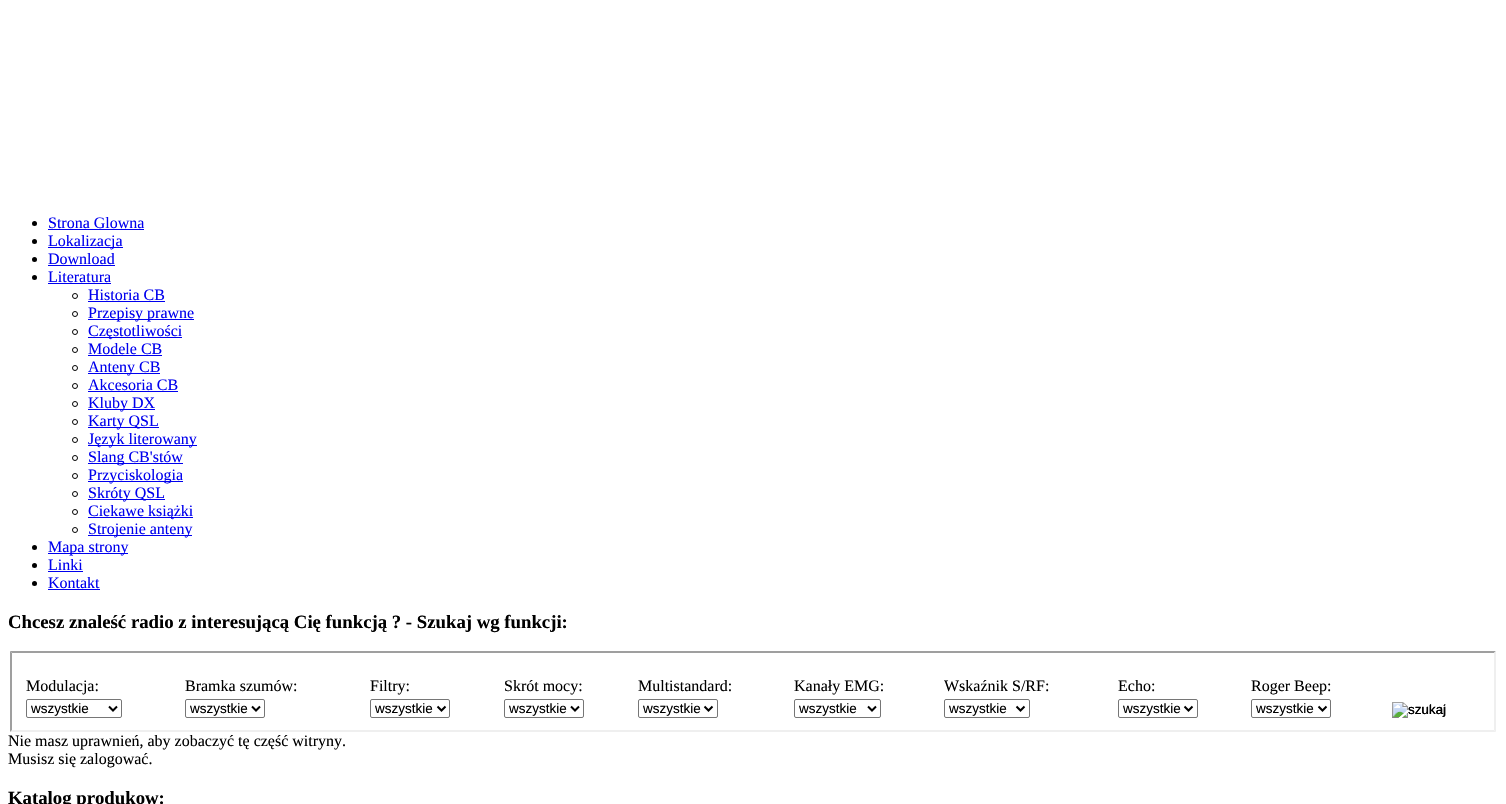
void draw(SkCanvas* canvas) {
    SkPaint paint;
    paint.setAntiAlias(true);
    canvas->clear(0xFFFFFFFF);
    paint.setColor(0xFF000000);
    canvas->drawCircle(34.5f, 223.5f, 2.5f, paint);
    SkFont font1(fontMgr->matchFamilyStyle("Liberation Serif", SkFontStyle::Normal()), 16);
    font1.setSubpixel(true);
    paint.setColor(0xFF0000EE);
    canvas->drawString("Strona Glowna", 48, 228, font1, paint);
    canvas->drawRect(SkRect::MakeXYWH(48, 229, 96, 1), paint);
    paint.setColor(0xFF000000);
    canvas->drawCircle(34.5f, 241.5f, 2.5f, paint);
    paint.setColor(0xFF0000EE);
    canvas->drawRect(SkRect::MakeXYWH(48, 247, 75, 1), paint);
    canvas->drawString("Lokalizacja", 48, 246, font1, paint);
    paint.setColor(0xFF000000);
    canvas->drawCircle(34.5f, 259.5f, 2.5f, paint);
    paint.setColor(0xFF0000EE);
    canvas->drawString("Download", 48, 264, font1, paint);
    canvas->drawRect(SkRect::MakeXYWH(48, 265, 67, 1), paint);
    paint.setColor(0xFF000000);
    canvas->drawCircle(34.5f, 277.5f, 2.5f, paint);
    paint.setColor(0xFF0000EE);
    canvas->drawString("Literatura", 48, 282, font1, paint);
    canvas->drawRect(SkRect::MakeXYWH(48, 283, 63, 1), paint);
    paint.setStyle(SkPaint::kStroke_Style);
    paint.setStrokeWidth(1);
    paint.setColor(0xFF000000);
    canvas->drawCircle(75, 296, 2.5f, paint);
    paint.setStyle(SkPaint::kFill_Style);
    paint.setColor(0xFF0000EE);
    canvas->drawString("Historia CB", 88, 300, font1, paint);
    canvas->drawRect(SkRect::MakeXYWH(88, 301, 77, 1), paint);
    paint.setStyle(SkPaint::kStroke_Style);
    paint.setColor(0xFF000000);
    canvas->drawCircle(75, 314, 2.5f, paint);
    paint.setStyle(SkPaint::kFill_Style);
    paint.setColor(0xFF0000EE);
    canvas->drawRect(SkRect::MakeXYWH(88, 319, 106, 1), paint);
    canvas->drawString("Przepisy prawne", 88, 318, font1, paint);
    paint.setStyle(SkPaint::kStroke_Style);
    paint.setColor(0xFF000000);
    canvas->drawCircle(75, 332, 2.5f, paint);
    paint.setStyle(SkPaint::kFill_Style);
    paint.setColor(0xFF0000EE);
    canvas->drawRect(SkRect::MakeXYWH(88, 337, 94, 1), paint);
    canvas->drawString("Częstotliwości", 88, 336, font1, paint);
    paint.setStyle(SkPaint::kStroke_Style);
    paint.setColor(0xFF000000);
    canvas->drawCircle(75, 350, 2.5f, paint);
    paint.setStyle(SkPaint::kFill_Style);
    paint.setColor(0xFF0000EE);
    canvas->drawString("Modele CB", 88, 354, font1, paint);
    canvas->drawRect(SkRect::MakeXYWH(88, 355, 74, 1), paint);
    paint.setStyle(SkPaint::kStroke_Style);
    paint.setColor(0xFF000000);
    canvas->drawCircle(75, 368, 2.5f, paint);
    paint.setStyle(SkPaint::kFill_Style);
    paint.setColor(0xFF0000EE);
    canvas->drawRect(SkRect::MakeXYWH(88, 373, 72, 1), paint);
    canvas->drawString("Anteny CB", 88, 372, font1, paint);
    paint.setStyle(SkPaint::kStroke_Style);
    paint.setColor(0xFF000000);
    canvas->drawCircle(75, 386, 2.5f, paint);
    paint.setStyle(SkPaint::kFill_Style);
    paint.setColor(0xFF0000EE);
    canvas->drawString("Akcesoria CB", 88, 390, font1, paint);
    canvas->drawRect(SkRect::MakeXYWH(88, 391, 90, 1), paint);
    paint.setStyle(SkPaint::kStroke_Style);
    paint.setColor(0xFF000000);
    canvas->drawCircle(75, 404, 2.5f, paint);
    paint.setStyle(SkPaint::kFill_Style);
    paint.setColor(0xFF0000EE);
    canvas->drawRect(SkRect::MakeXYWH(88, 409, 67, 1), paint);
    canvas->drawString("Kluby DX", 88, 408, font1, paint);
    paint.setStyle(SkPaint::kStroke_Style);
    paint.setColor(0xFF000000);
    canvas->drawCircle(75, 422, 2.5f, paint);
    paint.setStyle(SkPaint::kFill_Style);
    paint.setColor(0xFF0000EE);
    canvas->drawRect(SkRect::MakeXYWH(88, 427, 71, 1), paint);
    canvas->drawString("Karty QSL", 88, 426, font1, paint);
    paint.setStyle(SkPaint::kStroke_Style);
    paint.setColor(0xFF000000);
    canvas->drawCircle(75, 440, 2.5f, paint);
    paint.setStyle(SkPaint::kFill_Style);
    paint.setColor(0xFF0000EE);
    canvas->drawRect(SkRect::MakeXYWH(88, 445, 109, 1), paint);
    canvas->drawString("Język literowany", 88, 444, font1, paint);
    paint.setStyle(SkPaint::kStroke_Style);
    paint.setColor(0xFF000000);
    canvas->drawCircle(75, 458, 2.5f, paint);
    paint.setStyle(SkPaint::kFill_Style);
    paint.setColor(0xFF0000EE);
    canvas->drawRect(SkRect::MakeXYWH(88, 463, 95, 1), paint);
    canvas->drawString("Slang CB'stów", 88, 462, font1, paint);
    paint.setStyle(SkPaint::kStroke_Style);
    paint.setColor(0xFF000000);
    canvas->drawCircle(75, 476, 2.5f, paint);
    paint.setStyle(SkPaint::kFill_Style);
    paint.setColor(0xFF0000EE);
    canvas->drawRect(SkRect::MakeXYWH(88, 481, 95, 1), paint);
    canvas->drawString("Przyciskologia", 88, 480, font1, paint);
    paint.setStyle(SkPaint::kStroke_Style);
    paint.setColor(0xFF000000);
    canvas->drawCircle(75, 494, 2.5f, paint);
    paint.setStyle(SkPaint::kFill_Style);
    paint.setColor(0xFF0000EE);
    canvas->drawRect(SkRect::MakeXYWH(88, 499, 77, 1), paint);
    canvas->drawString("Skróty QSL", 88, 498, font1, paint);
    paint.setStyle(SkPaint::kStroke_Style);
    paint.setColor(0xFF000000);
    canvas->drawCircle(75, 512, 2.5f, paint);
    paint.setStyle(SkPaint::kFill_Style);
    paint.setColor(0xFF0000EE);
    canvas->drawRect(SkRect::MakeXYWH(88, 517, 105, 1), paint);
    canvas->drawString("Ciekawe książki", 88, 516, font1, paint);
    paint.setStyle(SkPaint::kStroke_Style);
    paint.setColor(0xFF000000);
    canvas->drawCircle(75, 530, 2.5f, paint);
    paint.setStyle(SkPaint::kFill_Style);
    paint.setColor(0xFF0000EE);
    canvas->drawRect(SkRect::MakeXYWH(88, 535, 104, 1), paint);
    canvas->drawString("Strojenie anteny", 88, 534, font1, paint);
    paint.setColor(0xFF000000);
    canvas->drawCircle(34.5f, 547.5f, 2.5f, paint);
    paint.setColor(0xFF0000EE);
    canvas->drawRect(SkRect::MakeXYWH(48, 553, 80, 1), paint);
    canvas->drawString("Mapa strony", 48, 552, font1, paint);
    paint.setColor(0xFF000000);
    canvas->drawCircle(34.5f, 565.5f, 2.5f, paint);
    paint.setColor(0xFF0000EE);
    canvas->drawString("Linki", 48, 570, font1, paint);
    canvas->drawRect(SkRect::MakeXYWH(48, 571, 35, 1), paint);
    paint.setColor(0xFF000000);
    canvas->drawCircle(34.5f, 583.5f, 2.5f, paint);
    paint.setColor(0xFF0000EE);
    canvas->drawString("Kontakt", 48, 588, font1, paint);
    canvas->drawRect(SkRect::MakeXYWH(48, 589, 52, 1), paint);
    SkFont font2(fontMgr->matchFamilyStyle("Liberation Serif", SkFontStyle::Bold()), 18.75f);
    font2.setSubpixel(true);
    paint.setColor(0xFF000000);
    canvas->drawString("Chcesz znaleść radio z interesującą Cię funkcją ? - Szukaj wg funkcji:", 8, 628, font2, paint);
    paint.setColor(0xFF9F9F9F);
    canvas->drawPath(SkPathBuilder().moveTo(10, 651).lineTo(1496, 651).lineTo(1494, 653).lineTo(12, 653).close().detach(), paint);
    paint.setColor(0xFFEFEFEF);
    canvas->drawPath(SkPathBuilder().moveTo(1496, 651).lineTo(1496, 732).lineTo(1494, 730).lineTo(1494, 653).close().detach(), paint);
    canvas->drawPath(SkPathBuilder().moveTo(1496, 732).lineTo(10, 732).lineTo(12, 730).lineTo(1494, 730).close().detach(), paint);
    paint.setColor(0xFF9F9F9F);
    canvas->drawPath(SkPathBuilder().moveTo(10, 732).lineTo(10, 651).lineTo(12, 653).lineTo(12, 730).close().detach(), paint);
    paint.setColor(0xFF000000);
    canvas->drawString("Modulacja:", 26, 691, font1, paint);
    canvas->drawString("Bramka szumów:", 185, 691, font1, paint);
    canvas->drawString("Filtry:", 370, 691, font1, paint);
    canvas->drawString("Skrót mocy:", 504, 691, font1, paint);
    canvas->drawString("Multistandard:", 638, 691, font1, paint);
    canvas->drawString("Kanały EMG:", 794, 691, font1, paint);
    canvas->drawString("Wskaźnik S/RF:", 944, 691, font1, paint);
    canvas->drawString("Echo:", 1118, 691, font1, paint);
    canvas->drawString("Roger Beep:", 1251, 691, font1, paint);
    canvas->drawImageRect(SkImages::DeferredFromEncodedData(SkData::MakeFromFileName("img1.png")), SkRect::MakeXYWH(1392, 702, 53, 16), SkSamplingOptions());
    SkFont font3(fontMgr->matchFamilyStyle("Liberation Sans", SkFontStyle::Normal()), 13.5f);
    font3.setSubpixel(true);
    canvas->drawString("szukaj", 1408, 714, font3, paint);
    paint.setStyle(SkPaint::kStroke_Style);
    paint.setColor(0xFF767676);
    canvas->drawRoundRect(SkRect::MakeXYWH(26.5f, 699.5f, 95, 18), 1.5f, 1.5f, paint);
    paint.setStrokeWidth(2);
    paint.setColor(0xFF000000);
    canvas->drawPath(SkPathBuilder().moveTo(109, 706.5f).lineTo(113, 710.5f).lineTo(117, 706.5f).detach(), paint);
    paint.setStyle(SkPaint::kFill_Style);
    canvas->drawString("wszystkie", 31, 713, font3, paint);
    paint.setStyle(SkPaint::kStroke_Style);
    paint.setStrokeWidth(1);
    paint.setColor(0xFF767676);
    canvas->drawRoundRect(SkRect::MakeXYWH(185.5f, 699.5f, 79, 18), 1.5f, 1.5f, paint);
    paint.setStrokeWidth(2);
    paint.setColor(0xFF000000);
    canvas->drawPath(SkPathBuilder().moveTo(252, 706.5f).lineTo(256, 710.5f).lineTo(260, 706.5f).detach(), paint);
    paint.setStyle(SkPaint::kFill_Style);
    canvas->drawString("wszystkie", 190, 713, font3, paint);
    paint.setStyle(SkPaint::kStroke_Style);
    paint.setStrokeWidth(1);
    paint.setColor(0xFF767676);
    canvas->drawRoundRect(SkRect::MakeXYWH(370.5f, 699.5f, 79, 18), 1.5f, 1.5f, paint);
    paint.setStrokeWidth(2);
    paint.setColor(0xFF000000);
    canvas->drawPath(SkPathBuilder().moveTo(437.5f, 706.5f).lineTo(441.5f, 710.5f).lineTo(445.5f, 706.5f).detach(), paint);
    paint.setStyle(SkPaint::kFill_Style);
    canvas->drawString("wszystkie", 375, 713, font3, paint);
    paint.setStyle(SkPaint::kStroke_Style);
    paint.setStrokeWidth(1);
    paint.setColor(0xFF767676);
    canvas->drawRoundRect(SkRect::MakeXYWH(504.5f, 699.5f, 79, 18), 1.5f, 1.5f, paint);
    paint.setStrokeWidth(2);
    paint.setColor(0xFF000000);
    canvas->drawPath(SkPathBuilder().moveTo(571, 706.5f).lineTo(575, 710.5f).lineTo(579, 706.5f).detach(), paint);
    paint.setStyle(SkPaint::kFill_Style);
    canvas->drawString("wszystkie", 509, 713, font3, paint);
    paint.setStyle(SkPaint::kStroke_Style);
    paint.setStrokeWidth(1);
    paint.setColor(0xFF767676);
    canvas->drawRoundRect(SkRect::MakeXYWH(638.5f, 699.5f, 79, 18), 1.5f, 1.5f, paint);
    paint.setStrokeWidth(2);
    paint.setColor(0xFF000000);
    canvas->drawPath(SkPathBuilder().moveTo(704.5f, 706.5f).lineTo(708.5f, 710.5f).lineTo(712.5f, 706.5f).detach(), paint);
    paint.setStyle(SkPaint::kFill_Style);
    canvas->drawString("wszystkie", 643, 713, font3, paint);
    paint.setStyle(SkPaint::kStroke_Style);
    paint.setStrokeWidth(1);
    paint.setColor(0xFF767676);
    canvas->drawRoundRect(SkRect::MakeXYWH(794.5f, 699.5f, 86, 18), 1.5f, 1.5f, paint);
    paint.setStrokeWidth(2);
    paint.setColor(0xFF000000);
    canvas->drawPath(SkPathBuilder().moveTo(868, 706.5f).lineTo(872, 710.5f).lineTo(876, 706.5f).detach(), paint);
    paint.setStyle(SkPaint::kFill_Style);
    canvas->drawString("wszystkie", 799, 713, font3, paint);
    paint.setStyle(SkPaint::kStroke_Style);
    paint.setStrokeWidth(1);
    paint.setColor(0xFF767676);
    canvas->drawRoundRect(SkRect::MakeXYWH(944.5f, 699.5f, 85, 18), 1.5f, 1.5f, paint);
    paint.setStrokeWidth(2);
    paint.setColor(0xFF000000);
    canvas->drawPath(SkPathBuilder().moveTo(1016.5f, 706.5f).lineTo(1020.5f, 710.5f).lineTo(1024.5f, 706.5f).detach(), paint);
    paint.setStyle(SkPaint::kFill_Style);
    canvas->drawString("wszystkie", 949, 713, font3, paint);
    paint.setStyle(SkPaint::kStroke_Style);
    paint.setStrokeWidth(1);
    paint.setColor(0xFF767676);
    canvas->drawRoundRect(SkRect::MakeXYWH(1118.5f, 699.5f, 79, 18), 1.5f, 1.5f, paint);
    paint.setStrokeWidth(2);
    paint.setColor(0xFF000000);
    canvas->drawPath(SkPathBuilder().moveTo(1184.5f, 706.5f).lineTo(1188.5f, 710.5f).lineTo(1192.5f, 706.5f).detach(), paint);
    paint.setStyle(SkPaint::kFill_Style);
    canvas->drawString("wszystkie", 1123, 713, font3, paint);
    paint.setStyle(SkPaint::kStroke_Style);
    paint.setStrokeWidth(1);
    paint.setColor(0xFF767676);
    canvas->drawRoundRect(SkRect::MakeXYWH(1251.5f, 699.5f, 79, 18), 1.5f, 1.5f, paint);
    paint.setStrokeWidth(2);
    paint.setColor(0xFF000000);
    canvas->drawPath(SkPathBuilder().moveTo(1318.5f, 706.5f).lineTo(1322.5f, 710.5f).lineTo(1326.5f, 706.5f).detach(), paint);
    paint.setStyle(SkPaint::kFill_Style);
    canvas->drawString("wszystkie", 1256, 713, font3, paint);
    canvas->drawString("Nie masz uprawnień, aby zobaczyć tę część witryny.", 8, 746, font1, paint);
    canvas->drawString("Musisz się zalogować.", 8, 764, font1, paint);
    canvas->drawString("Katalog produkow:", 8, 804, font2, paint);
}
